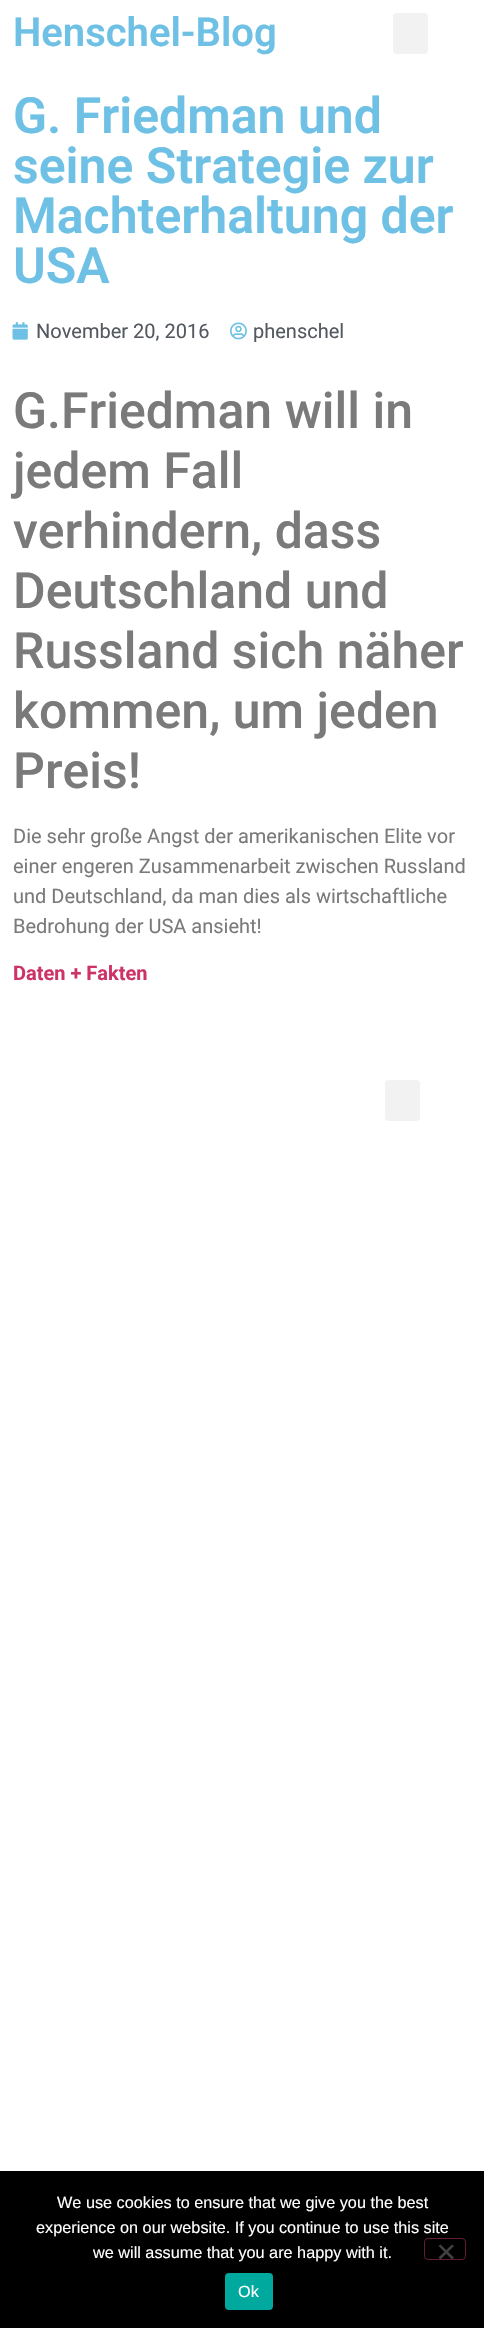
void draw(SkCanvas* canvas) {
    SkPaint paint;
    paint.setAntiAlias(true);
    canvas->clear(0xFFFFFFFF);
    SkFont font1(fontMgr->matchFamilyStyle("Roboto", SkFontStyle(600, SkFontStyle::kNormal_Width, SkFontStyle::kUpright_Slant)), 40);
    font1.setSubpixel(true);
    paint.setColor(0xFF6EC1E4);
    canvas->drawString("Henschel-Blog", 13, 46, font1, paint);
    paint.setColor(0xFFF2F2F2);
    canvas->drawRoundRect(SkRect::MakeXYWH(393, 13, 35, 41), 4, 4, paint);
    SkFont font2(fontMgr->matchFamilyStyle("Roboto", SkFontStyle(600, SkFontStyle::kNormal_Width, SkFontStyle::kUpright_Slant)), 50);
    font2.setSubpixel(true);
    paint.setColor(0xFF6EC1E4);
    canvas->drawString("G. Friedman und", 13, 133, font2, paint);
    canvas->drawString("seine Strategie zur", 13, 183, font2, paint);
    canvas->drawString("Machterhaltung der", 13, 233, font2, paint);
    canvas->drawString("USA", 13, 283, font2, paint);
    canvas->drawImageRect(SkImages::DeferredFromEncodedData(SkData::MakeFromFileName("img1.png")), SkRect::MakeXYWH(12, 322, 16, 18), SkSamplingOptions());
    SkFont font3(fontMgr->matchFamilyStyle("Roboto", SkFontStyle::Normal()), 20);
    font3.setSubpixel(true);
    paint.setColor(0xFF54595F);
    canvas->drawString("November 20, 2016", 36, 338, font3, paint);
    canvas->drawImageRect(SkImages::DeferredFromEncodedData(SkData::MakeFromFileName("img2.png")), SkRect::MakeXYWH(230, 322, 17, 18), SkSamplingOptions());
    canvas->drawString("phenschel", 253, 338, font3, paint);
    SkFont font4(fontMgr->matchFamilyStyle("Roboto", SkFontStyle(500, SkFontStyle::kNormal_Width, SkFontStyle::kUpright_Slant)), 50);
    font4.setSubpixel(true);
    paint.setColor(0xFF7A7A7A);
    canvas->drawString("G.Friedman will in", 13, 428, font4, paint);
    canvas->drawString("jedem Fall", 13, 488, font4, paint);
    canvas->drawString("verhindern, dass", 13, 548, font4, paint);
    canvas->drawString("Deutschland und", 13, 608, font4, paint);
    canvas->drawString("Russland sich näher", 13, 668, font4, paint);
    canvas->drawString("kommen, um jeden", 13, 728, font4, paint);
    canvas->drawString("Preis!", 13, 788, font4, paint);
    canvas->drawString("Die sehr große Angst der amerikanischen Elite vor", 13, 843, font3, paint);
    canvas->drawString("einer engeren Zusammenarbeit zwischen Russland", 13, 873, font3, paint);
    canvas->drawString("und Deutschland, da man dies als wirtschaftliche", 13, 903, font3, paint);
    canvas->drawString("Bedrohung der USA ansieht!", 13, 933, font3, paint);
    SkFont font5(fontMgr->matchFamilyStyle("Roboto", SkFontStyle::Bold()), 20);
    font5.setSubpixel(true);
    paint.setColor(0xFFCC3366);
    canvas->drawString("Daten + Fakten", 13, 980, font5, paint);
    paint.setColor(0xFFF2F2F2);
    canvas->drawRoundRect(SkRect::MakeXYWH(385, 1080, 35, 41), 4, 4, paint);
    paint.setColor(0xFF000000);
    canvas->drawRect(SkRect::MakeXYWH(0, 2171, 484, 157), paint);
    SkFont font6(fontMgr->matchFamilyStyle("Liberation Sans", SkFontStyle::Normal()), 16.25f);
    font6.setSubpixel(true);
    paint.setColor(0xFFFFFFFF);
    canvas->drawString("We use cookies to ensure that we give you the best", 57, 2208, font6, paint);
    canvas->drawString("experience on our website. If you continue to use this site", 36, 2233, font6, paint);
    canvas->drawString("we will assume that you are happy with it.", 93, 2258, font6, paint);
    paint.setStyle(SkPaint::kStroke_Style);
    paint.setStrokeWidth(1);
    paint.setColor(0xFF661A33);
    canvas->drawRoundRect(SkRect::MakeXYWH(424.5f, 2238.5f, 41, 21), 3.5f, 3.5f, paint);
    paint.setStyle(SkPaint::kFill_Style);
    paint.setColor(0xFF404040);
    canvas->drawPath(SkPathBuilder().moveTo(452, 2244.5f).lineTo(454, 2246).lineTo(440.5f, 2259.5f).lineTo(438.5f, 2257.5f).close().detach(), paint);
    canvas->drawPath(SkPathBuilder().moveTo(438.5f, 2246).lineTo(440.5f, 2244.5f).lineTo(454, 2257.5f).lineTo(452, 2259.5f).close().detach(), paint);
    paint.setColor(0xFF00A99D);
    canvas->drawRoundRect(SkRect::MakeXYWH(225, 2273, 48, 37), 4, 4, paint);
    paint.setColor(0xFFFFFFFF);
    canvas->drawString("Ok", 238, 2297, font6, paint);
}
